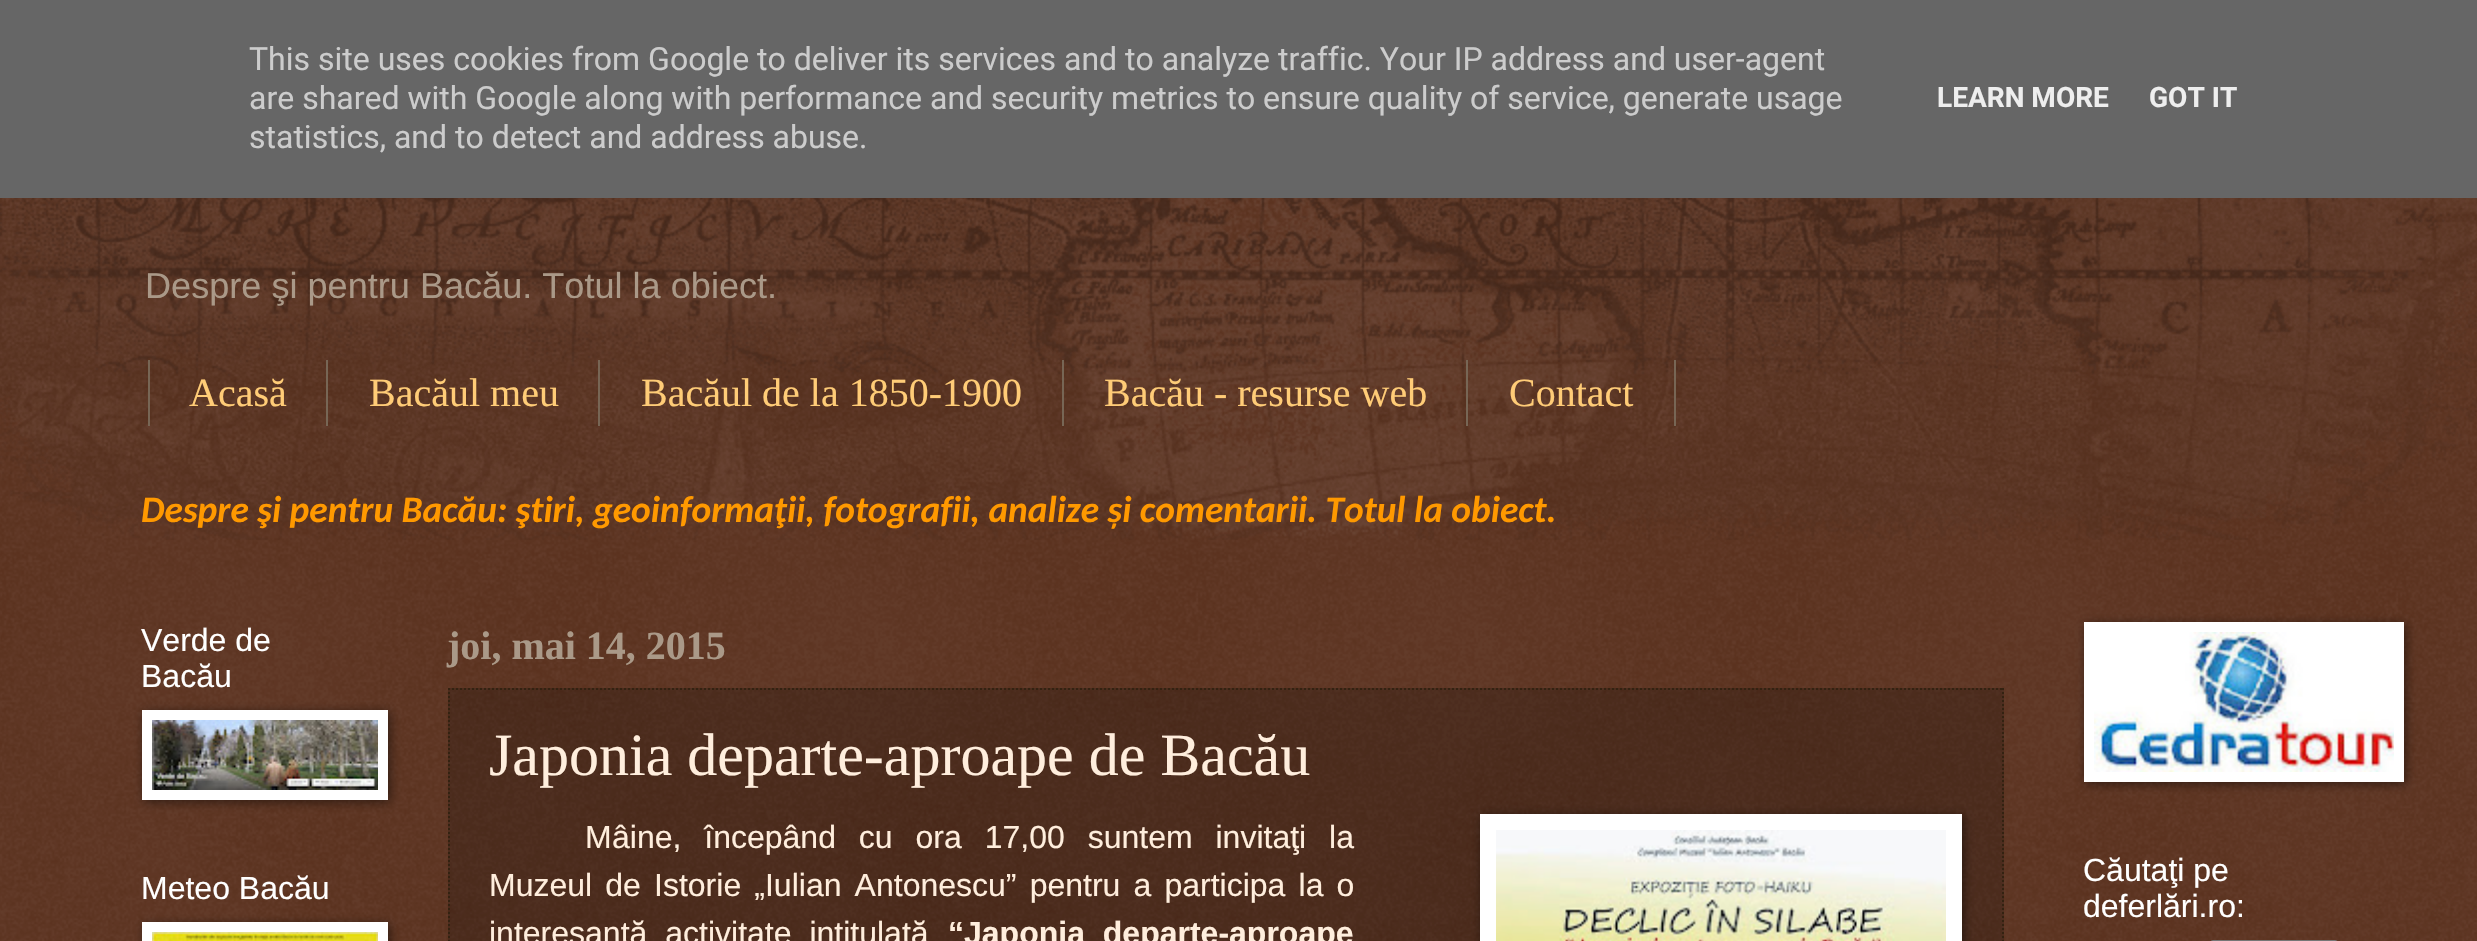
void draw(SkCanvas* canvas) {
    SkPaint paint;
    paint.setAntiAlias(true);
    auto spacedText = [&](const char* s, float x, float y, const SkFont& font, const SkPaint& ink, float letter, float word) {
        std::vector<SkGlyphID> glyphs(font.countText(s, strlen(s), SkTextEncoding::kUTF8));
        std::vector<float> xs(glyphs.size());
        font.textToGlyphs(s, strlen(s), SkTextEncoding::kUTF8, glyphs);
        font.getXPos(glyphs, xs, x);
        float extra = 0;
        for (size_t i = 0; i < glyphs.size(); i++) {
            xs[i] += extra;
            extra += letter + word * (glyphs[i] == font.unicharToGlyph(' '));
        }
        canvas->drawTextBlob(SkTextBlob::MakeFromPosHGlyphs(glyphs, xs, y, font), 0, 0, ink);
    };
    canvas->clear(0xFF441500);
    canvas->drawImageRect(SkImages::DeferredFromEncodedData(SkData::MakeFromFileName("img1.png")), SkRect::MakeXYWH(0, 198, 2477, 743), SkSamplingOptions());
    paint.setColor(0xFF666666);
    canvas->drawRect(SkRect::MakeXYWH(0, 0, 2477, 198), paint);
    SkFont font1(fontMgr->matchFamilyStyle("Roboto", SkFontStyle::Normal()), 32);
    font1.setSubpixel(true);
    paint.setColor(0xFFCCCCCC);
    canvas->drawString("This site uses cookies from Google to deliver its services and to analyze traffic. Your IP address and user-agent", 249, 70, font1, paint);
    canvas->drawString("are shared with Google along with performance and security metrics to ensure quality of service, generate usage", 249, 109, font1, paint);
    canvas->drawString("statistics, and to detect and address abuse.", 249, 148, font1, paint);
    SkFont font2(fontMgr->matchFamilyStyle("Roboto", SkFontStyle::Bold()), 28);
    font2.setSubpixel(true);
    paint.setColor(0xFFEEEEEE);
    canvas->drawString("LEARN MORE", 1937, 107, font2, paint);
    canvas->drawString("GOT IT", 2149, 107, font2, paint);
    canvas->drawImageRect(SkImages::DeferredFromEncodedData(SkData::MakeFromFileName("img2.png")), SkRect::MakeXYWH(0, 198, 2477, 342), SkSamplingOptions());
    SkFont font3(fontMgr->matchFamilyStyle("Liberation Sans", SkFontStyle::Normal()), 36.1f);
    font3.setSubpixel(true);
    paint.setColor(0xFFAA9988);
    canvas->drawString("Despre şi pentru Bacău. Totul la obiect.", 145, 298, font3, paint);
    paint.setColor(0xFF776655);
    canvas->drawRect(SkRect::MakeXYWH(326, 360, 2, 66), paint);
    canvas->drawRect(SkRect::MakeXYWH(148, 360, 2, 66), paint);
    SkFont font4(fontMgr->matchFamilyStyle("Liberation Serif", SkFontStyle::Normal()), 40);
    font4.setSubpixel(true);
    paint.setColor(0xFFFFCC77);
    canvas->drawString("Acasă", 189, 406, font4, paint);
    paint.setColor(0xFF776655);
    canvas->drawRect(SkRect::MakeXYWH(598, 360, 2, 66), paint);
    paint.setColor(0xFFFFCC77);
    canvas->drawString("Bacăul meu", 369, 406, font4, paint);
    paint.setColor(0xFF776655);
    canvas->drawRect(SkRect::MakeXYWH(1062, 360, 2, 66), paint);
    paint.setColor(0xFFFFCC77);
    canvas->drawString("Bacăul de la 1850-1900", 641, 406, font4, paint);
    paint.setColor(0xFF776655);
    canvas->drawRect(SkRect::MakeXYWH(1466, 360, 2, 66), paint);
    paint.setColor(0xFFFFCC77);
    canvas->drawString("Bacău - resurse web", 1104, 406, font4, paint);
    paint.setColor(0xFF776655);
    canvas->drawRect(SkRect::MakeXYWH(1674, 360, 2, 66), paint);
    paint.setColor(0xFFFFCC77);
    canvas->drawString("Contact", 1509, 406, font4, paint);
    SkFont font5(fontMgr->matchFamilyStyle("Carlito", SkFontStyle::BoldItalic()), 37.35f);
    font5.setSubpixel(true);
    paint.setColor(0xFFFF9900);
    canvas->drawString("Despre şi pentru Bacău: ştiri, geoinformaţii, fotografii, analize și comentarii. Totul la obiect.", 141, 522, font5, paint);
    SkFont font6(fontMgr->matchFamilyStyle("Arimo", SkFontStyle::Normal()), 32);
    font6.setSubpixel(true);
    paint.setColor(0xFFFFFFFF);
    canvas->drawString("Verde de", 141, 651, font6, paint);
    canvas->drawString("Bacău", 141, 687, font6, paint);
    paint.setColor(0x80000000);
    paint.setMaskFilter(SkMaskFilter::MakeBlur(kNormal_SkBlurStyle, 5));
    canvas->drawRect(SkRect::MakeXYWH(144, 712, 246, 90), paint);
    paint.setMaskFilter(nullptr);
    paint.setColor(0xFFFFFFFF);
    canvas->drawRect(SkRect::MakeXYWH(142, 710, 246, 90), paint);
    canvas->drawImageRect(SkImages::DeferredFromEncodedData(SkData::MakeFromFileName("img3.png")), SkRect::MakeXYWH(152, 720, 226, 70), SkSamplingOptions());
    canvas->drawString("Meteo Bacău", 141, 899, font6, paint);
    paint.setColor(0x80000000);
    paint.setMaskFilter(SkMaskFilter::MakeBlur(kNormal_SkBlurStyle, 5));
    canvas->drawRect(SkRect::MakeXYWH(144, 924, 246, 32), paint);
    paint.setMaskFilter(nullptr);
    paint.setColor(0xFFFFFFFF);
    canvas->drawRect(SkRect::MakeXYWH(142, 922, 246, 19), paint);
    canvas->drawImageRect(SkImages::DeferredFromEncodedData(SkData::MakeFromFileName("img4.png")), SkRect::MakeXYWH(152, 932, 226, 9), SkSamplingOptions());
    SkFont font7(fontMgr->matchFamilyStyle("Liberation Serif", SkFontStyle::Bold()), 40);
    font7.setSubpixel(true);
    paint.setColor(0xFFAA9988);
    canvas->drawString("joi, mai 14, 2015", 447, 659, font7, paint);
    paint.setColor(0x33000000);
    canvas->drawRect(SkRect::MakeXYWH(448, 688, 1556, 253), paint);
    paint.setStyle(SkPaint::kStroke_Style);
    paint.setStrokeWidth(2);
    paint.setColor(0xFF332211);
    paint.setPathEffect(SkDashPathEffect::Make({{2, 2}}, 0));
    canvas->drawPath(SkPathBuilder().moveTo(448, 689).lineTo(2004, 689).detach(), paint);
    paint.setPathEffect(nullptr);
    paint.setPathEffect(SkDashPathEffect::Make({{2, 2}}, 0));
    canvas->drawPath(SkPathBuilder().moveTo(2003, 688).lineTo(2003, 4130).detach(), paint);
    paint.setPathEffect(nullptr);
    paint.setPathEffect(SkDashPathEffect::Make({{2, 2}}, 0));
    canvas->drawPath(SkPathBuilder().moveTo(449, 688).lineTo(449, 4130).detach(), paint);
    paint.setPathEffect(nullptr);
    SkFont font8(fontMgr->matchFamilyStyle("Liberation Serif", SkFontStyle::Normal()), 60);
    font8.setSubpixel(true);
    paint.setStyle(SkPaint::kFill_Style);
    paint.setColor(0xFFFFEEDD);
    canvas->drawString("Japonia departe-aproape de Bacău", 489, 775, font8, paint);
    SkFont font9(fontMgr->matchFamilyStyle("Liberation Sans", SkFontStyle::Normal()), 32);
    font9.setSubpixel(true);
    canvas->drawString("M", 585, 848, font9, paint);
    spacedText("âine, începând cu ora 17,00 suntem invitaţi la", 612, 848, font9, paint, 0, 14);
    paint.setColor(0x80000000);
    paint.setMaskFilter(SkMaskFilter::MakeBlur(kNormal_SkBlurStyle, 5));
    canvas->drawRect(SkRect::MakeXYWH(1482, 816, 482, 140), paint);
    paint.setMaskFilter(nullptr);
    paint.setColor(0xFFFFFFFF);
    canvas->drawRect(SkRect::MakeXYWH(1480, 814, 482, 127), paint);
    canvas->drawImageRect(SkImages::DeferredFromEncodedData(SkData::MakeFromFileName("img5.png")), SkRect::MakeXYWH(1496, 830, 450, 111), SkSamplingOptions());
    paint.setColor(0xFFFFEEDD);
    spacedText("Muzeul de Istorie „Iulian Antonescu” pentru a participa la o", 489, 896, font9, paint, 0, 4.25f);
    spacedText("interesantă activitate intitulată", 489, 944, font9, paint, 0, 9);
    SkFont font10(fontMgr->matchFamilyStyle("Liberation Sans", SkFontStyle::Bold()), 32);
    font10.setSubpixel(true);
    spacedText("“Japonia departe-aproape", 948, 944, font10, paint, 0, 9);
    paint.setColor(0x80000000);
    paint.setMaskFilter(SkMaskFilter::MakeBlur(kNormal_SkBlurStyle, 5));
    canvas->drawRect(SkRect::MakeXYWH(2086, 624, 320, 160), paint);
    paint.setMaskFilter(nullptr);
    paint.setColor(0xFFFFFFFF);
    canvas->drawRect(SkRect::MakeXYWH(2084, 622, 320, 160), paint);
    canvas->drawImageRect(SkImages::DeferredFromEncodedData(SkData::MakeFromFileName("img6.png")), SkRect::MakeXYWH(2094, 632, 300, 140), SkSamplingOptions());
    canvas->drawString("Căutaţi pe", 2083, 881, font6, paint);
    canvas->drawString("deferlări.ro:", 2083, 917, font6, paint);
    paint.setStyle(SkPaint::kStroke_Style);
    paint.setColor(0xFF767676);
    canvas->drawRoundRect(SkRect::MakeXYWH(2211, 941, 126, 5), 3, 3, paint);
}
